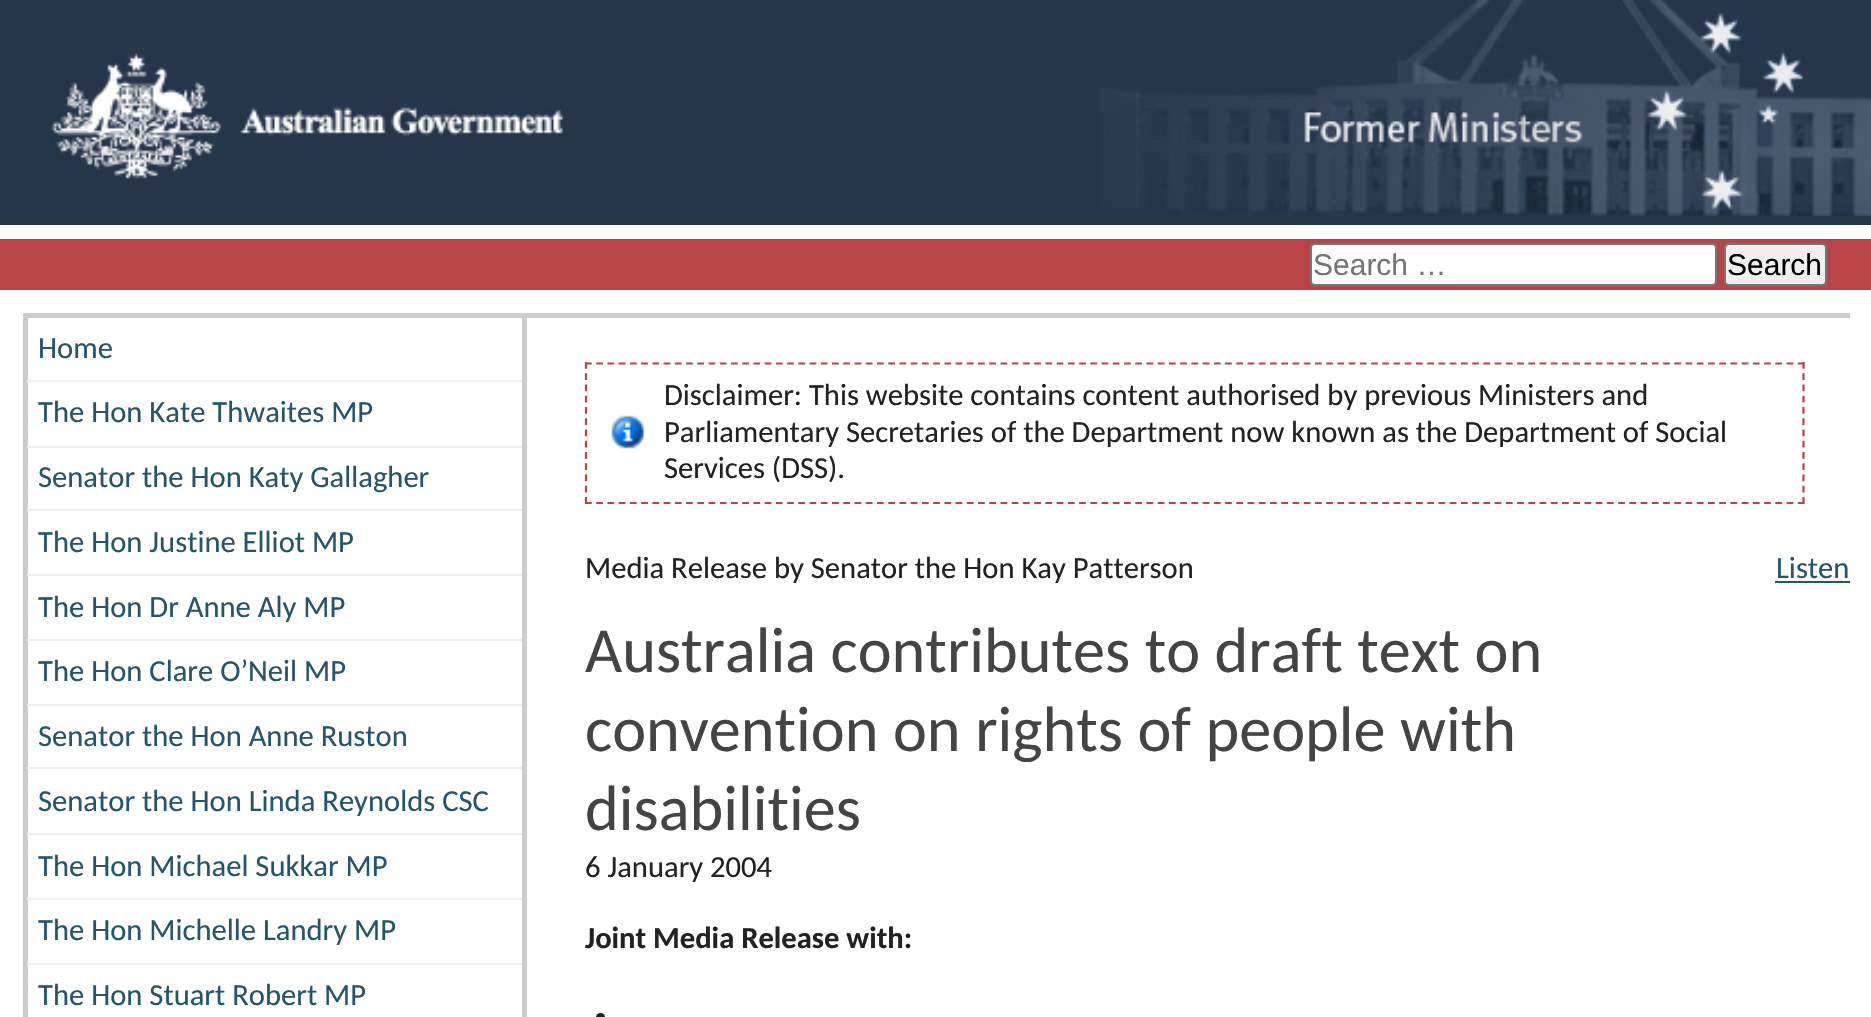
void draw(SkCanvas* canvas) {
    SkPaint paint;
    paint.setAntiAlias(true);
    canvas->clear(0xFFFFFFFF);
    paint.setColor(0xFF26374B);
    canvas->drawRect(SkRect::MakeXYWH(0, 0, 1871, 225), paint);
    canvas->drawImageRect(SkImages::DeferredFromEncodedData(SkData::MakeFromFileName("img1.png")), SkRect::MakeXYWH(1100, 0, 771, 216), SkSamplingOptions());
    canvas->drawImageRect(SkImages::DeferredFromEncodedData(SkData::MakeFromFileName("img2.png")), SkRect::MakeXYWH(50, 53, 519, 126), SkSamplingOptions());
    paint.setColor(0xFFB94447);
    canvas->drawRect(SkRect::MakeXYWH(0, 239, 1871, 51), paint);
    paint.setColor(0xFFFFFFFF);
    canvas->drawRoundRect(SkRect::MakeXYWH(1311, 244, 405, 41), 4, 4, paint);
    paint.setStyle(SkPaint::kStroke_Style);
    paint.setStrokeWidth(2);
    paint.setColor(0xFF767676);
    canvas->drawRoundRect(SkRect::MakeXYWH(1311, 244, 405, 41), 4, 4, paint);
    SkFont font1(fontMgr->matchFamilyStyle("Liberation Sans", SkFontStyle::Normal()), 30);
    font1.setSubpixel(true);
    paint.setStyle(SkPaint::kFill_Style);
    paint.setColor(0xFF757575);
    canvas->drawString("Search …", 1313, 275, font1, paint);
    paint.setColor(0xFFEFEFEF);
    canvas->drawRoundRect(SkRect::MakeXYWH(1725, 244, 101, 41), 4, 4, paint);
    paint.setStyle(SkPaint::kStroke_Style);
    paint.setColor(0xFF767676);
    canvas->drawRoundRect(SkRect::MakeXYWH(1725, 244, 101, 41), 4, 4, paint);
    paint.setStyle(SkPaint::kFill_Style);
    paint.setColor(0xFF000000);
    canvas->drawString("Search", 1727, 275, font1, paint);
    paint.setColor(0xFFCCCCCC);
    canvas->drawRect(SkRect::MakeXYWH(23, 313, 1827, 5), paint);
    canvas->drawRect(SkRect::MakeXYWH(522, 317, 5, 700), paint);
    canvas->drawRect(SkRect::MakeXYWH(23, 317, 5, 700), paint);
    paint.setColor(0xFFEFEFEF);
    canvas->drawRect(SkRect::MakeXYWH(27, 380, 495, 2), paint);
    SkFont font2(fontMgr->matchFamilyStyle("Carlito", SkFontStyle::Normal()), 30.6f);
    font2.setSubpixel(true);
    paint.setColor(0xFF24556D);
    canvas->drawString("Home", 38, 358, font2, paint);
    paint.setColor(0xFFEFEFEF);
    canvas->drawRect(SkRect::MakeXYWH(27, 446, 495, 2), paint);
    paint.setColor(0xFF24556D);
    canvas->drawString("The Hon Kate Thwaites MP", 38, 422, font2, paint);
    paint.setColor(0xFFEFEFEF);
    canvas->drawRect(SkRect::MakeXYWH(27, 509, 495, 2), paint);
    paint.setColor(0xFF24556D);
    canvas->drawString("Senator the Hon Katy Gallagher", 38, 487, font2, paint);
    paint.setColor(0xFFEFEFEF);
    canvas->drawRect(SkRect::MakeXYWH(27, 574, 495, 2), paint);
    paint.setColor(0xFF24556D);
    canvas->drawString("The Hon Justine Elliot MP", 38, 552, font2, paint);
    paint.setColor(0xFFEFEFEF);
    canvas->drawRect(SkRect::MakeXYWH(27, 639, 495, 2), paint);
    paint.setColor(0xFF24556D);
    canvas->drawString("The Hon Dr Anne Aly MP", 38, 617, font2, paint);
    paint.setColor(0xFFEFEFEF);
    canvas->drawRect(SkRect::MakeXYWH(27, 704, 495, 2), paint);
    paint.setColor(0xFF24556D);
    canvas->drawString("The Hon Clare O’Neil MP", 38, 681, font2, paint);
    paint.setColor(0xFFEFEFEF);
    canvas->drawRect(SkRect::MakeXYWH(27, 767, 495, 2), paint);
    paint.setColor(0xFF24556D);
    canvas->drawString("Senator the Hon Anne Ruston", 38, 746, font2, paint);
    paint.setColor(0xFFEFEFEF);
    canvas->drawRect(SkRect::MakeXYWH(27, 833, 495, 2), paint);
    paint.setColor(0xFF24556D);
    canvas->drawString("Senator the Hon Linda Reynolds CSC", 38, 811, font2, paint);
    paint.setColor(0xFFEFEFEF);
    canvas->drawRect(SkRect::MakeXYWH(27, 898, 495, 2), paint);
    paint.setColor(0xFF24556D);
    canvas->drawString("The Hon Michael Sukkar MP", 38, 876, font2, paint);
    paint.setColor(0xFFEFEFEF);
    canvas->drawRect(SkRect::MakeXYWH(27, 963, 495, 2), paint);
    paint.setColor(0xFF24556D);
    canvas->drawString("The Hon Michelle Landry MP", 38, 940, font2, paint);
    canvas->drawString("The Hon Stuart Robert MP", 38, 1005, font2, paint);
    canvas->drawImageRect(SkImages::DeferredFromEncodedData(SkData::MakeFromFileName("img3.png")), SkRect::MakeXYWH(611, 415, 34, 34), SkSamplingOptions());
    paint.setStyle(SkPaint::kStroke_Style);
    paint.setStrokeWidth(2.2f);
    paint.setColor(0xFFB84447);
    paint.setPathEffect(SkDashPathEffect::Make({{6.75f, 4.48f}}, 0));
    canvas->drawPath(SkPathBuilder().moveTo(585, 363.5f).lineTo(1804.5f, 363.5f).detach(), paint);
    paint.setPathEffect(nullptr);
    paint.setPathEffect(SkDashPathEffect::Make({{6.75f, 4.5f}}, 0));
    canvas->drawPath(SkPathBuilder().moveTo(1803.5f, 362).lineTo(1803.5f, 504).detach(), paint);
    paint.setPathEffect(nullptr);
    paint.setPathEffect(SkDashPathEffect::Make({{6.75f, 4.48f}}, 0));
    canvas->drawPath(SkPathBuilder().moveTo(585, 503).lineTo(1804.5f, 503).detach(), paint);
    paint.setPathEffect(nullptr);
    paint.setPathEffect(SkDashPathEffect::Make({{6.75f, 4.5f}}, 0));
    canvas->drawPath(SkPathBuilder().moveTo(586, 362).lineTo(586, 504).detach(), paint);
    paint.setPathEffect(nullptr);
    paint.setStyle(SkPaint::kFill_Style);
    paint.setColor(0xFF222222);
    canvas->drawString("Disclaimer: This website contains content authorised by previous Ministers and", 664, 405, font2, paint);
    canvas->drawString("Parliamentary Secretaries of the Department now known as the Department of Social", 664, 442, font2, paint);
    canvas->drawString("Services (DSS).", 664, 478, font2, paint);
    canvas->drawString("Media Release by Senator the Hon Kay Patterson", 585, 578, font2, paint);
    SkFont font3(fontMgr->matchFamilyStyle("Carlito", SkFontStyle::Normal()), 64.25f);
    font3.setSubpixel(true);
    paint.setColor(0xFF444444);
    canvas->drawString("Australia contributes to draft text on", 585, 672, font3, paint);
    canvas->drawString("convention on rights of people with", 585, 751, font3, paint);
    canvas->drawString("disabilities", 585, 830, font3, paint);
    paint.setColor(0xFF222222);
    canvas->drawString("6 January 2004", 585, 877, font2, paint);
    SkFont font4(fontMgr->matchFamilyStyle("Carlito", SkFontStyle::Bold()), 30.6f);
    font4.setSubpixel(true);
    canvas->drawString("Joint Media Release with:", 585, 948, font4, paint);
    canvas->drawCircle(600.5f, 1017.5f, 4.5f, paint);
    paint.setColor(0xFF24556D);
    canvas->drawString("Listen", 1776, 578, font2, paint);
    canvas->drawRect(SkRect::MakeXYWH(1775, 581, 75, 2), paint);
}
